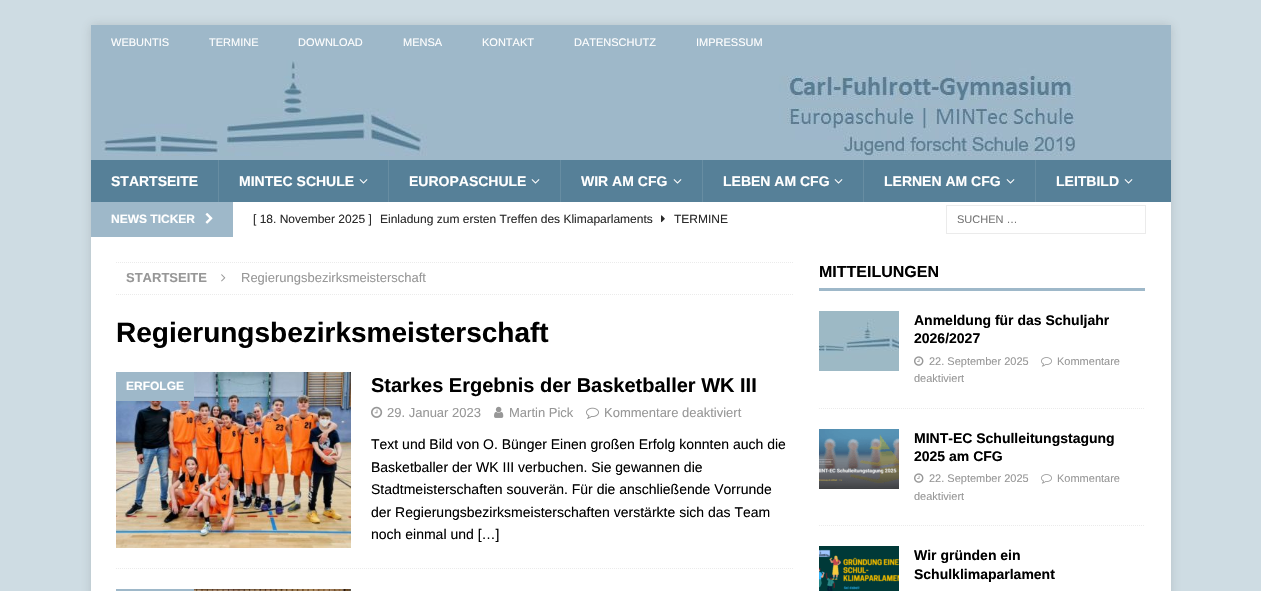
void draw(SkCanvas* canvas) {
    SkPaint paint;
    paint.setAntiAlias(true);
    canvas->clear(0xFFCEDCE3);
    paint.setColor(0x2B323232);
    paint.setMaskFilter(SkMaskFilter::MakeBlur(kNormal_SkBlurStyle, 5));
    canvas->drawRect(SkRect::MakeXYWH(91, 25, 1080, 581), paint);
    paint.setMaskFilter(nullptr);
    paint.setColor(0xFF9EB8C9);
    canvas->drawRect(SkRect::MakeXYWH(91, 25, 1080, 135), paint);
    SkFont font1(fontMgr->matchFamilyStyle("Liberation Sans", SkFontStyle::Normal()), 11);
    font1.setSubpixel(true);
    paint.setColor(0xFFFFFFFF);
    canvas->drawString("WEBUNTIS", 111, 46, font1, paint);
    canvas->drawString("TERMINE", 209, 46, font1, paint);
    canvas->drawString("DOWNLOAD", 298, 46, font1, paint);
    canvas->drawString("MENSA", 403, 46, font1, paint);
    canvas->drawString("KONTAKT", 482, 46, font1, paint);
    canvas->drawString("DATENSCHUTZ", 574, 46, font1, paint);
    canvas->drawString("IMPRESSUM", 696, 46, font1, paint);
    canvas->drawImageRect(SkImages::DeferredFromEncodedData(SkData::MakeFromFileName("img1.png")), SkRect::MakeXYWH(101, 60, 974, 96), SkSamplingOptions());
    paint.setColor(0xFF568098);
    canvas->drawRect(SkRect::MakeXYWH(91, 160, 1080, 42), paint);
    SkFont font2(fontMgr->matchFamilyStyle("Liberation Sans", SkFontStyle::Bold()), 14);
    font2.setSubpixel(true);
    paint.setColor(0xFFFFFFFF);
    canvas->drawString("STARTSEITE", 111, 186, font2, paint);
    paint.setColor(0xFF678DA2);
    canvas->drawRect(SkRect::MakeXYWH(218, 160, 1, 42), paint);
    paint.setColor(0xFFFFFFFF);
    canvas->drawString("MINTEC SCHULE", 239, 186, font2, paint);
    canvas->drawImageRect(SkImages::DeferredFromEncodedData(SkData::MakeFromFileName("img2.png")), SkRect::MakeXYWH(359, 179, 9, 5), SkSamplingOptions());
    paint.setColor(0xFF678DA2);
    canvas->drawRect(SkRect::MakeXYWH(388, 160, 1, 42), paint);
    paint.setColor(0xFFFFFFFF);
    canvas->drawString("EUROPASCHULE", 409, 186, font2, paint);
    canvas->drawImageRect(SkImages::DeferredFromEncodedData(SkData::MakeFromFileName("img2.png")), SkRect::MakeXYWH(531, 179, 9, 5), SkSamplingOptions());
    paint.setColor(0xFF678DA2);
    canvas->drawRect(SkRect::MakeXYWH(560, 160, 1, 42), paint);
    paint.setColor(0xFFFFFFFF);
    canvas->drawString("WIR AM CFG", 581, 186, font2, paint);
    canvas->drawImageRect(SkImages::DeferredFromEncodedData(SkData::MakeFromFileName("img2.png")), SkRect::MakeXYWH(673, 179, 9, 5), SkSamplingOptions());
    paint.setColor(0xFF678DA2);
    canvas->drawRect(SkRect::MakeXYWH(702, 160, 1, 42), paint);
    paint.setColor(0xFFFFFFFF);
    canvas->drawString("LEBEN AM CFG", 723, 186, font2, paint);
    canvas->drawImageRect(SkImages::DeferredFromEncodedData(SkData::MakeFromFileName("img2.png")), SkRect::MakeXYWH(834, 179, 9, 5), SkSamplingOptions());
    paint.setColor(0xFF678DA2);
    canvas->drawRect(SkRect::MakeXYWH(863, 160, 1, 42), paint);
    paint.setColor(0xFFFFFFFF);
    canvas->drawString("LERNEN AM CFG", 884, 186, font2, paint);
    canvas->drawImageRect(SkImages::DeferredFromEncodedData(SkData::MakeFromFileName("img2.png")), SkRect::MakeXYWH(1006, 179, 9, 5), SkSamplingOptions());
    paint.setColor(0xFF678DA2);
    canvas->drawRect(SkRect::MakeXYWH(1035, 160, 1, 42), paint);
    paint.setColor(0xFFFFFFFF);
    canvas->drawString("LEITBILD", 1056, 186, font2, paint);
    canvas->drawImageRect(SkImages::DeferredFromEncodedData(SkData::MakeFromFileName("img2.png")), SkRect::MakeXYWH(1124, 179, 9, 5), SkSamplingOptions());
    canvas->drawRect(SkRect::MakeXYWH(233, 202, 938, 35), paint);
    paint.setColor(0xFF9EB8C9);
    canvas->drawRect(SkRect::MakeXYWH(91, 202, 142, 35), paint);
    SkFont font3(fontMgr->matchFamilyStyle("Liberation Sans", SkFontStyle::Bold()), 12);
    font3.setSubpixel(true);
    paint.setColor(0xFFFFFFFF);
    canvas->drawString("NEWS TICKER", 111, 223, font3, paint);
    canvas->drawImageRect(SkImages::DeferredFromEncodedData(SkData::MakeFromFileName("img3.png")), SkRect::MakeXYWH(205, 213, 8, 11), SkSamplingOptions());
    SkFont font4(fontMgr->matchFamilyStyle("Liberation Sans", SkFontStyle::Normal()), 12);
    font4.setSubpixel(true);
    paint.setColor(0xFF2A2A2A);
    canvas->drawString("[ 18. November 2025 ]", 253, 223, font4, paint);
    canvas->drawString("Einladung zum ersten Treffen des Klimaparlaments", 380, 223, font4, paint);
    canvas->drawImageRect(SkImages::DeferredFromEncodedData(SkData::MakeFromFileName("img4.png")), SkRect::MakeXYWH(661, 215, 4, 8), SkSamplingOptions());
    canvas->drawString("TERMINE", 674, 223, font4, paint);
    paint.setStyle(SkPaint::kStroke_Style);
    paint.setStrokeWidth(1);
    paint.setColor(0xFFEBEBEB);
    canvas->drawRect(SkRect::MakeXYWH(946.5f, 205.5f, 199, 28), paint);
    paint.setStyle(SkPaint::kFill_Style);
    paint.setColor(0xFF757575);
    canvas->drawString("SUCHEN …", 957, 223, font1, paint);
    paint.setColor(0xFFFFFFFF);
    canvas->drawRect(SkRect::MakeXYWH(91, 237, 1080, 354), paint);
    paint.setStyle(SkPaint::kStroke_Style);
    paint.setColor(0xFFEBEBEB);
    paint.setPathEffect(SkDashPathEffect::Make({{1, 1}}, 0));
    canvas->drawPath(SkPathBuilder().moveTo(116, 262.5f).lineTo(794, 262.5f).detach(), paint);
    paint.setPathEffect(nullptr);
    paint.setPathEffect(SkDashPathEffect::Make({{1, 1}}, 0));
    canvas->drawPath(SkPathBuilder().moveTo(116, 294.5f).lineTo(794, 294.5f).detach(), paint);
    paint.setPathEffect(nullptr);
    SkFont font5(fontMgr->matchFamilyStyle("Liberation Sans", SkFontStyle::Bold()), 13);
    font5.setSubpixel(true);
    paint.setStyle(SkPaint::kFill_Style);
    paint.setColor(0xFF979797);
    canvas->drawString("STARTSEITE", 126, 282, font5, paint);
    canvas->drawImageRect(SkImages::DeferredFromEncodedData(SkData::MakeFromFileName("img5.png")), SkRect::MakeXYWH(221, 274, 5, 8), SkSamplingOptions());
    SkFont font6(fontMgr->matchFamilyStyle("Liberation Sans", SkFontStyle::Normal()), 13);
    font6.setSubpixel(true);
    canvas->drawString("Regierungsbezirksmeisterschaft", 241, 282, font6, paint);
    SkFont font7(fontMgr->matchFamilyStyle("Liberation Sans", SkFontStyle::Bold()), 28);
    font7.setSubpixel(true);
    paint.setColor(0xFF000000);
    canvas->drawString("Regierungsbezirksmeisterschaft", 116, 342, font7, paint);
    paint.setStyle(SkPaint::kStroke_Style);
    paint.setColor(0xFFEBEBEB);
    paint.setPathEffect(SkDashPathEffect::Make({{1, 1}}, 0));
    canvas->drawPath(SkPathBuilder().moveTo(116, 568.5f).lineTo(794, 568.5f).detach(), paint);
    paint.setPathEffect(nullptr);
    canvas->drawImageRect(SkImages::DeferredFromEncodedData(SkData::MakeFromFileName("img6.png")), SkRect::MakeXYWH(116, 372, 235, 176), SkSamplingOptions());
    paint.setStyle(SkPaint::kFill_Style);
    paint.setColor(0xFF9EB8C9);
    canvas->drawRect(SkRect::MakeXYWH(116, 372, 78, 29), paint);
    paint.setColor(0xFFFFFFFF);
    canvas->drawString("ERFOLGE", 126, 390, font3, paint);
    SkFont font8(fontMgr->matchFamilyStyle("Liberation Sans", SkFontStyle::Bold()), 20);
    font8.setSubpixel(true);
    paint.setColor(0xFF000000);
    canvas->drawString("Starkes Ergebnis der Basketballer WK III", 371, 392, font8, paint);
    canvas->drawImageRect(SkImages::DeferredFromEncodedData(SkData::MakeFromFileName("img7.png")), SkRect::MakeXYWH(371, 406, 12, 12), SkSamplingOptions());
    paint.setColor(0xFF979797);
    canvas->drawString("29. Januar 2023", 387, 417, font6, paint);
    canvas->drawImageRect(SkImages::DeferredFromEncodedData(SkData::MakeFromFileName("img8.png")), SkRect::MakeXYWH(494, 406, 10, 12), SkSamplingOptions());
    canvas->drawString("Martin Pick", 509, 417, font6, paint);
    canvas->drawImageRect(SkImages::DeferredFromEncodedData(SkData::MakeFromFileName("img9.png")), SkRect::MakeXYWH(586, 407, 13, 12), SkSamplingOptions());
    canvas->drawString("Kommentare deaktiviert", 604, 417, font6, paint);
    SkFont font9(fontMgr->matchFamilyStyle("Liberation Sans", SkFontStyle::Normal()), 14);
    font9.setSubpixel(true);
    paint.setColor(0xFF000000);
    canvas->drawString("Text und Bild von O. Bünger Einen großen Erfolg konnten auch die", 371, 449, font9, paint);
    canvas->drawString("Basketballer der WK III verbuchen. Sie gewannen die", 371, 472, font9, paint);
    canvas->drawString("Stadtmeisterschaften souverän. Für die anschließende Vorrunde", 371, 494, font9, paint);
    canvas->drawString("der Regierungsbezirksmeisterschaften verstärkte sich das Team", 371, 517, font9, paint);
    canvas->drawString("noch einmal und […]", 371, 539, font9, paint);
    paint.setColor(0xFF9EB8C9);
    canvas->drawRect(SkRect::MakeXYWH(116, 589, 78, 2), paint);
    canvas->drawImageRect(SkImages::DeferredFromEncodedData(SkData::MakeFromFileName("img10.png")), SkRect::MakeXYWH(194, 589, 157, 2), SkSamplingOptions());
    canvas->drawRect(SkRect::MakeXYWH(819, 288, 326, 3), paint);
    SkFont font10(fontMgr->matchFamilyStyle("Liberation Sans", SkFontStyle::Bold()), 16);
    font10.setSubpixel(true);
    paint.setColor(0xFF000000);
    canvas->drawString("MITTEILUNGEN", 819, 277, font10, paint);
    paint.setStyle(SkPaint::kStroke_Style);
    paint.setColor(0xFFEBEBEB);
    paint.setPathEffect(SkDashPathEffect::Make({{1, 1}}, 0));
    canvas->drawPath(SkPathBuilder().moveTo(819, 408.5f).lineTo(1145, 408.5f).detach(), paint);
    paint.setPathEffect(nullptr);
    canvas->drawImageRect(SkImages::DeferredFromEncodedData(SkData::MakeFromFileName("img11.png")), SkRect::MakeXYWH(819, 311, 80, 60), SkSamplingOptions());
    paint.setStyle(SkPaint::kFill_Style);
    paint.setColor(0xFF000000);
    canvas->drawString("Anmeldung für das Schuljahr", 914, 325, font2, paint);
    canvas->drawString("2026/2027", 914, 343, font2, paint);
    canvas->drawImageRect(SkImages::DeferredFromEncodedData(SkData::MakeFromFileName("img12.png")), SkRect::MakeXYWH(1041, 357, 11, 10), SkSamplingOptions());
    paint.setColor(0xFF979797);
    canvas->drawString("Kommentare", 1057, 365, font1, paint);
    canvas->drawString("deaktiviert", 914, 382, font1, paint);
    canvas->drawImageRect(SkImages::DeferredFromEncodedData(SkData::MakeFromFileName("img13.png")), SkRect::MakeXYWH(914, 356, 10, 10), SkSamplingOptions());
    canvas->drawString("22. September 2025", 929, 365, font1, paint);
    paint.setStyle(SkPaint::kStroke_Style);
    paint.setColor(0xFFEBEBEB);
    paint.setPathEffect(SkDashPathEffect::Make({{1, 1}}, 0));
    canvas->drawPath(SkPathBuilder().moveTo(819, 525.5f).lineTo(1145, 525.5f).detach(), paint);
    paint.setPathEffect(nullptr);
    canvas->drawImageRect(SkImages::DeferredFromEncodedData(SkData::MakeFromFileName("img14.png")), SkRect::MakeXYWH(819, 429, 80, 60), SkSamplingOptions());
    paint.setStyle(SkPaint::kFill_Style);
    paint.setColor(0xFF000000);
    canvas->drawString("MINT-EC Schulleitungstagung", 914, 443, font2, paint);
    canvas->drawString("2025 am CFG", 914, 461, font2, paint);
    canvas->drawImageRect(SkImages::DeferredFromEncodedData(SkData::MakeFromFileName("img12.png")), SkRect::MakeXYWH(1041, 474, 11, 10), SkSamplingOptions());
    paint.setColor(0xFF979797);
    canvas->drawString("Kommentare", 1057, 482, font1, paint);
    canvas->drawString("deaktiviert", 914, 500, font1, paint);
    canvas->drawImageRect(SkImages::DeferredFromEncodedData(SkData::MakeFromFileName("img13.png")), SkRect::MakeXYWH(914, 473, 10, 10), SkSamplingOptions());
    canvas->drawString("22. September 2025", 929, 482, font1, paint);
    canvas->drawImageRect(SkImages::DeferredFromEncodedData(SkData::MakeFromFileName("img15.png")), SkRect::MakeXYWH(819, 546, 80, 45), SkSamplingOptions());
    paint.setColor(0xFF000000);
    canvas->drawString("Wir gründen ein", 914, 560, font2, paint);
    canvas->drawString("Schulklimaparlament", 914, 579, font2, paint);
}
